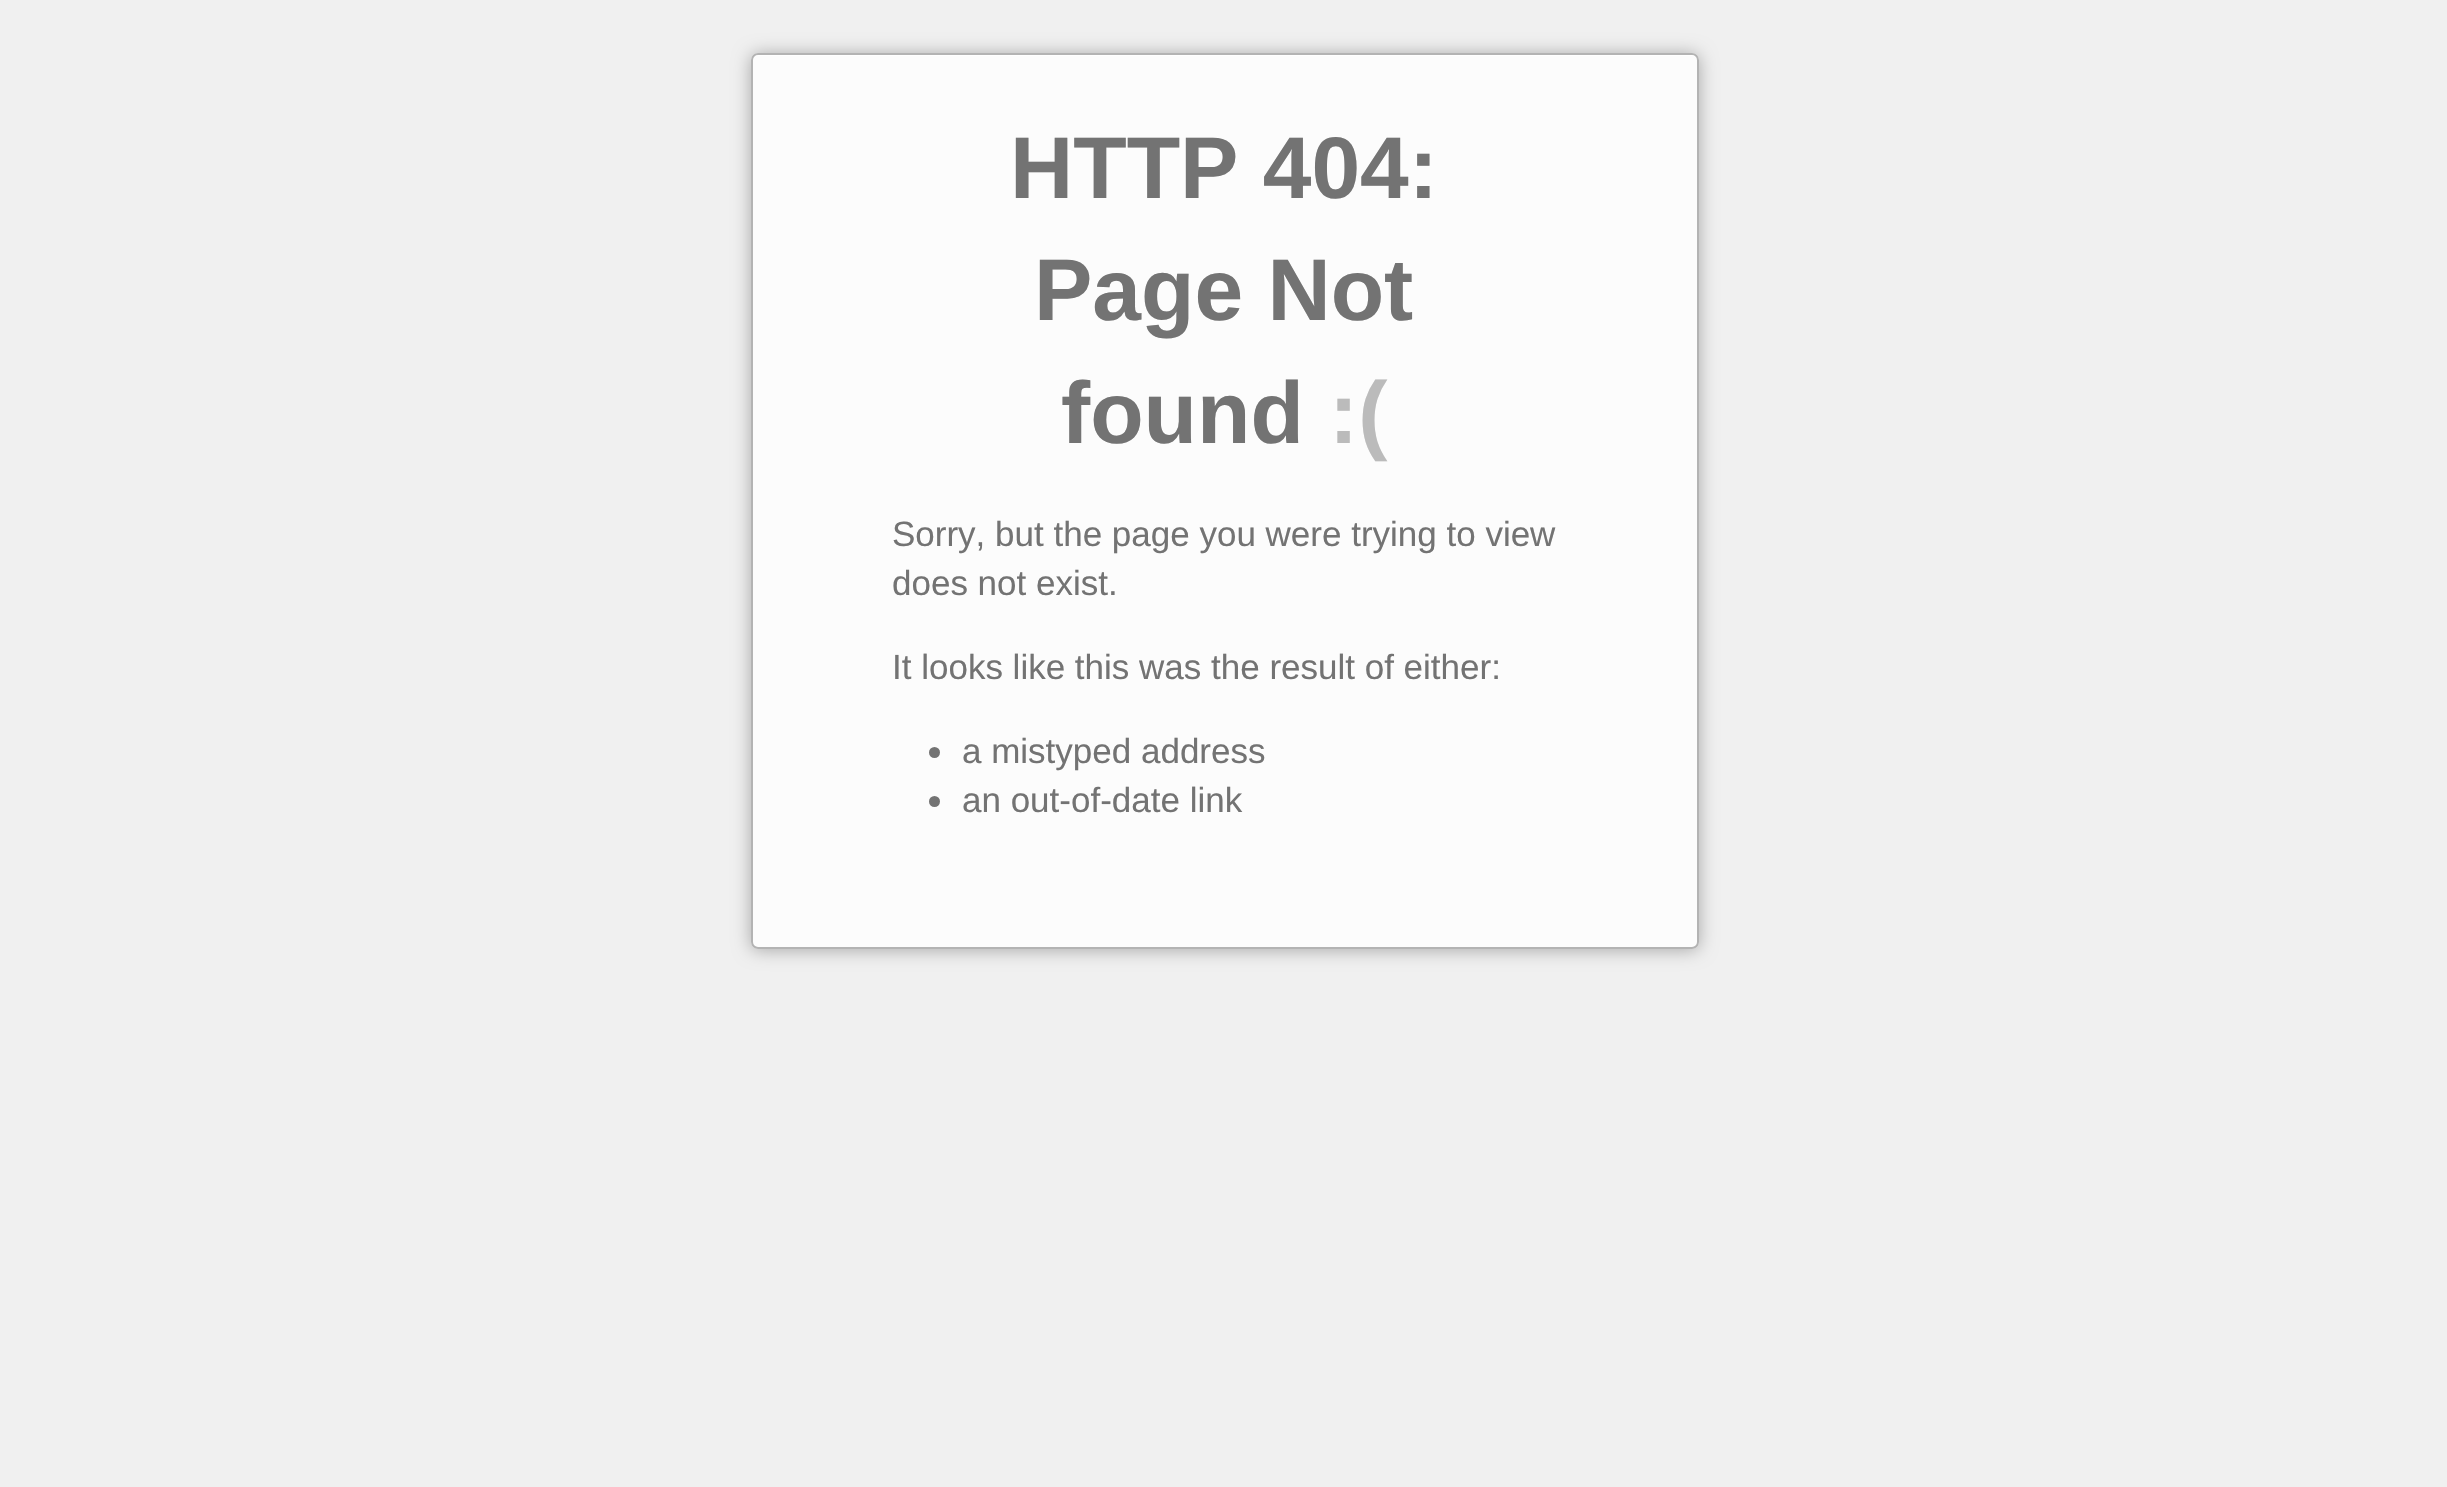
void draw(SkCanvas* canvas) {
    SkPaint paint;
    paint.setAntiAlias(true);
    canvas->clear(0xFFF0F0F0);
    paint.setColor(0xFFA7A7A7);
    paint.setMaskFilter(SkMaskFilter::MakeBlur(kNormal_SkBlurStyle, 9));
    canvas->drawRoundRect(SkRect::MakeXYWH(751, 54, 948, 896), 7, 7, paint);
    paint.setMaskFilter(nullptr);
    paint.setColor(0xFFFCFCFC);
    canvas->drawRoundRect(SkRect::MakeXYWH(751, 53, 948, 896), 7, 7, paint);
    paint.setColor(0xFFFFFFFF);
    canvas->drawPath(SkPathBuilder().moveTo(758, 56).lineTo(1692, 56).cubicTo(1695, 56, 1698, 58, 1698, 61).lineTo(1698, 59).cubicTo(1698, 56, 1696, 54, 1693, 54).lineTo(758, 54).cubicTo(756, 54, 753, 56, 753, 58).cubicTo(754, 57, 756, 56, 758, 56).close().detach(), paint);
    paint.setStyle(SkPaint::kStroke_Style);
    paint.setStrokeWidth(2);
    paint.setColor(0xFFB3B3B3);
    canvas->drawRoundRect(SkRect::MakeXYWH(752, 54, 946, 894), 6, 6, paint);
    SkFont font1(fontMgr->matchFamilyStyle("Liberation Sans", SkFontStyle::Bold()), 87.5f);
    font1.setSubpixel(true);
    paint.setStyle(SkPaint::kFill_Style);
    paint.setColor(0xFF737373);
    canvas->drawString("HTTP 404:", 1010, 198, font1, paint);
    canvas->drawString("Page Not", 1034, 320, font1, paint);
    canvas->drawString("found", 1061, 443, font1, paint);
    paint.setColor(0xFFBBBBBB);
    canvas->drawString(":(", 1329, 443, font1, paint);
    SkFont font2(fontMgr->matchFamilyStyle("Liberation Sans", SkFontStyle::Normal()), 35);
    font2.setSubpixel(true);
    paint.setColor(0xFF737373);
    canvas->drawString("Sorry, but the page you were trying to view", 892, 546, font2, paint);
    canvas->drawString("does not exist.", 892, 595, font2, paint);
    canvas->drawString("It looks like this was the result of either:", 892, 679, font2, paint);
    canvas->drawCircle(934.5f, 752.5f, 5.5f, paint);
    canvas->drawString("a mistyped address", 962, 763, font2, paint);
    canvas->drawCircle(934.5f, 801.5f, 5.5f, paint);
    canvas->drawString("an out-of-date link", 962, 812, font2, paint);
}
